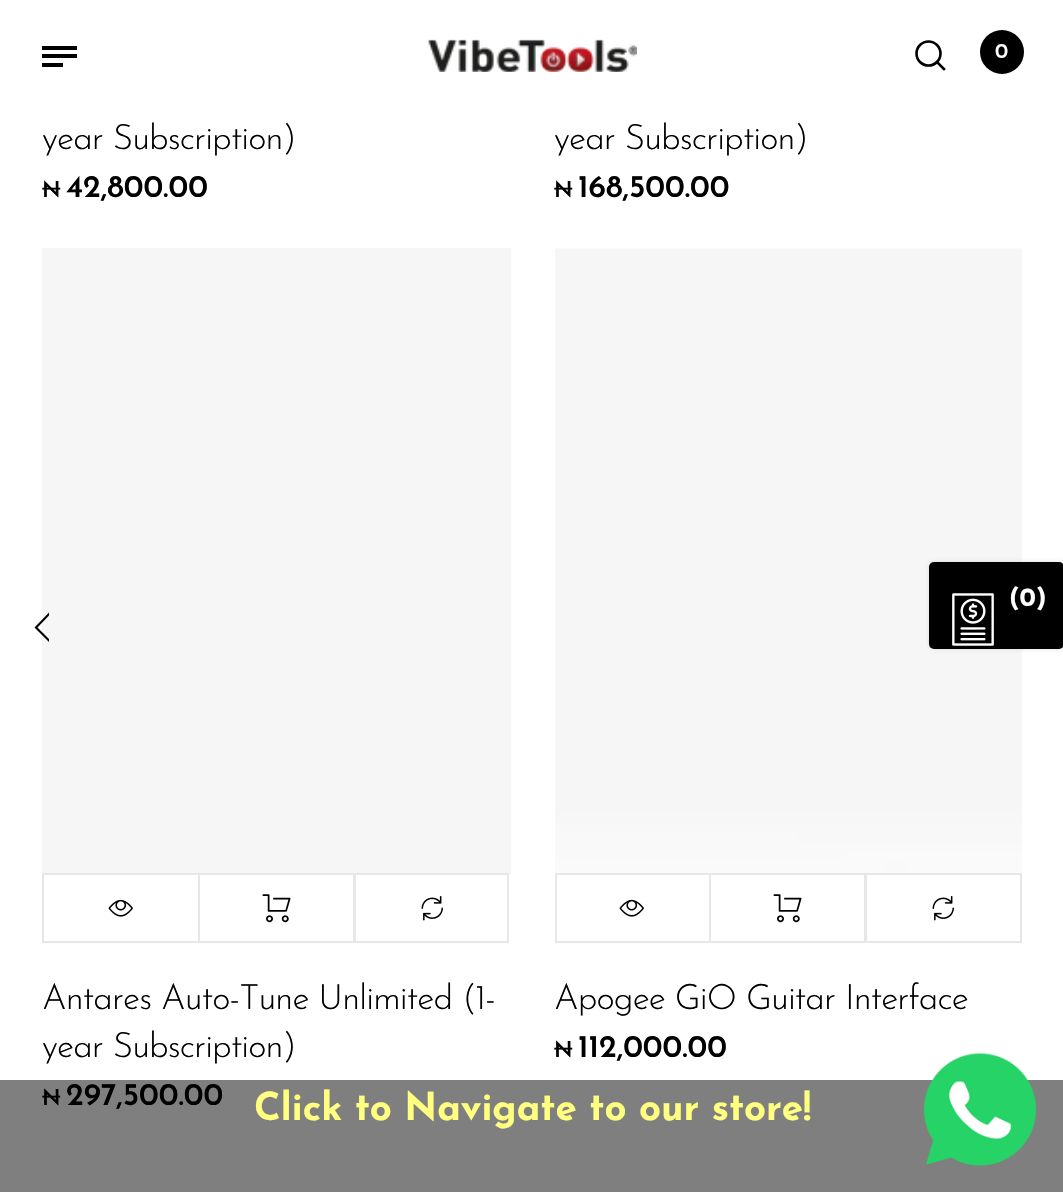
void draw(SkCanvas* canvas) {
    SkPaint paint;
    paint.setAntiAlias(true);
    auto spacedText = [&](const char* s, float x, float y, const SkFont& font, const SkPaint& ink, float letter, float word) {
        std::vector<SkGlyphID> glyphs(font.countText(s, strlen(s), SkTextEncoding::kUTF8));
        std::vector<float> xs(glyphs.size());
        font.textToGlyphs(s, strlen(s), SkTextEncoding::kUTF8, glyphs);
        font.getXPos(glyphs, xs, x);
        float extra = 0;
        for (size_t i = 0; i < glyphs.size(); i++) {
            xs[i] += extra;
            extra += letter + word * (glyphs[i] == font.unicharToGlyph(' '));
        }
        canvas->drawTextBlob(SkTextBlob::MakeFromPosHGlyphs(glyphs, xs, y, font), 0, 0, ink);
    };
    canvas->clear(0xFFFFFFFF);
    paint.setColor(0xFF000000);
    canvas->drawRect(SkRect::MakeXYWH(42, 46, 35, 4), paint);
    canvas->drawRect(SkRect::MakeXYWH(42, 54, 35, 4), paint);
    canvas->drawRect(SkRect::MakeXYWH(42, 63, 21, 4), paint);
    canvas->drawImageRect(SkImages::DeferredFromEncodedData(SkData::MakeFromFileName("img1.png")), SkRect::MakeXYWH(428, 39, 209, 33), SkSamplingOptions());
    paint.setStyle(SkPaint::kStroke_Style);
    paint.setStrokeWidth(2.6f);
    paint.setStrokeCap(SkPaint::kSquare_Cap);
    canvas->drawPath(SkPathBuilder().moveTo(944, 69).lineTo(937, 62).detach(), paint);
    paint.setStrokeCap(SkPaint::kButt_Cap);
    canvas->drawCircle(928.5f, 53.5f, 12, paint);
    paint.setStyle(SkPaint::kFill_Style);
    canvas->drawCircle(1002, 52, 22, paint);
    SkFont font1(fontMgr->matchFamilyStyle("Josefin Sans", SkFontStyle(600, SkFontStyle::kNormal_Width, SkFontStyle::kUpright_Slant)), 21);
    font1.setSubpixel(true);
    paint.setColor(0xFFFFFFFF);
    canvas->drawString("0", 995, 58, font1, paint);
    paint.setColor(0xFFF6F6F6);
    canvas->drawRect(SkRect::MakeXYWH(42, 248, 469, 626), paint);
    paint.setColor(0xFF000000);
    canvas->drawPath(SkPathBuilder().moveTo(34.5f, 627.5f).lineTo(49, 642).lineTo(49, 639).lineTo(37.5f, 627.5f).lineTo(49, 615.5f).lineTo(49, 612.5f).close().detach(), paint);
    SkFont font2(fontMgr->matchFamilyStyle("Josefin Sans", SkFontStyle(300, SkFontStyle::kNormal_Width, SkFontStyle::kUpright_Slant)), 35);
    font2.setSubpixel(true);
    spacedText("year Subscription)", 42, 149, font2, paint, -0.9f, 0);
    SkFont font3(fontMgr->matchFamilyStyle("Josefin Sans", SkFontStyle(600, SkFontStyle::kNormal_Width, SkFontStyle::kUpright_Slant)), 22);
    font3.setSubpixel(true);
    canvas->drawString("₦", 42, 197, font3, paint);
    SkFont font4(fontMgr->matchFamilyStyle("Josefin Sans", SkFontStyle(600, SkFontStyle::kNormal_Width, SkFontStyle::kUpright_Slant)), 31.5f);
    font4.setSubpixel(true);
    canvas->drawString("42,800.00", 66, 197, font4, paint);
    spacedText("year Subscription)", 554, 149, font2, paint, -0.9f, 0);
    canvas->drawString("₦", 554, 197, font3, paint);
    canvas->drawString("168,500.00", 578, 197, font4, paint);
    paint.setStyle(SkPaint::kStroke_Style);
    paint.setStrokeWidth(2);
    paint.setColor(0xFFE7E7E7);
    canvas->drawRect(SkRect::MakeXYWH(43, 874, 156, 68), paint);
    canvas->drawImageRect(SkImages::DeferredFromEncodedData(SkData::MakeFromFileName("img2.png")), SkRect::MakeXYWH(108, 899, 25, 18), SkSamplingOptions());
    canvas->drawRect(SkRect::MakeXYWH(199, 874, 155, 68), paint);
    canvas->drawImageRect(SkImages::DeferredFromEncodedData(SkData::MakeFromFileName("img3.png")), SkRect::MakeXYWH(262, 894, 29, 29), SkSamplingOptions());
    canvas->drawRect(SkRect::MakeXYWH(355, 874, 153, 68), paint);
    canvas->drawImageRect(SkImages::DeferredFromEncodedData(SkData::MakeFromFileName("img4.png")), SkRect::MakeXYWH(421, 896, 22, 25), SkSamplingOptions());
    paint.setStyle(SkPaint::kFill_Style);
    paint.setColor(0xFF000000);
    spacedText("Antares Auto-Tune Unlimited (1-", 42, 1009, font2, paint, -0.9f, 0);
    spacedText("year Subscription)", 42, 1057, font2, paint, -0.9f, 0);
    canvas->drawString("₦", 42, 1105, font3, paint);
    canvas->drawString("297,500.00", 66, 1105, font4, paint);
    canvas->drawImageRect(SkImages::DeferredFromEncodedData(SkData::MakeFromFileName("img5.png")), SkRect::MakeXYWH(555, 248, 467, 625), SkSamplingOptions());
    paint.setStyle(SkPaint::kStroke_Style);
    paint.setColor(0xFFE7E7E7);
    canvas->drawRect(SkRect::MakeXYWH(556, 874, 154, 68), paint);
    canvas->drawImageRect(SkImages::DeferredFromEncodedData(SkData::MakeFromFileName("img2.png")), SkRect::MakeXYWH(619, 899, 25, 18), SkSamplingOptions());
    canvas->drawRect(SkRect::MakeXYWH(710, 874, 155, 68), paint);
    canvas->drawImageRect(SkImages::DeferredFromEncodedData(SkData::MakeFromFileName("img3.png")), SkRect::MakeXYWH(773, 894, 29, 29), SkSamplingOptions());
    canvas->drawRect(SkRect::MakeXYWH(866, 874, 155, 68), paint);
    canvas->drawImageRect(SkImages::DeferredFromEncodedData(SkData::MakeFromFileName("img4.png")), SkRect::MakeXYWH(932, 896, 22, 25), SkSamplingOptions());
    paint.setStyle(SkPaint::kFill_Style);
    paint.setColor(0xFF000000);
    spacedText("Apogee GiO Guitar Interface", 554, 1009, font2, paint, -0.9f, 0);
    canvas->drawString("₦", 554, 1057, font3, paint);
    canvas->drawString("112,000.00", 578, 1057, font4, paint);
    paint.setColor(0xFFDDDDDD);
    paint.setMaskFilter(SkMaskFilter::MakeBlur(kNormal_SkBlurStyle, 2));
    canvas->drawRoundRect(SkRect::MakeXYWH(929, 562, 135, 87), 5, 5, paint);
    paint.setMaskFilter(nullptr);
    paint.setColor(0xFF000000);
    canvas->drawRoundRect(SkRect::MakeXYWH(929, 562, 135, 87), 5, 5, paint);
    canvas->drawImageRect(SkImages::DeferredFromEncodedData(SkData::MakeFromFileName("img6.png")), SkRect::MakeXYWH(952, 593, 42, 53), SkSamplingOptions());
    SkFont font5(fontMgr->matchFamilyStyle("Josefin Sans", SkFontStyle::Bold()), 26);
    font5.setSubpixel(true);
    paint.setColor(0xFFFFFFFF);
    canvas->drawString("(0)", 1009, 606, font5, paint);
    paint.setColor(0x80000000);
    canvas->drawRect(SkRect::MakeXYWH(0, 1080, 1063, 112), paint);
    SkFont font6(fontMgr->matchFamilyStyle("Josefin Sans", SkFontStyle::Bold()), 38.5f);
    font6.setSubpixel(true);
    paint.setColor(0xFFFFFF80);
    canvas->drawString("Click to Navigate to our store!", 254, 1120, font6, paint);
    canvas->drawImageRect(SkImages::DeferredFromEncodedData(SkData::MakeFromFileName("img7.png")), SkRect::MakeXYWH(924, 1053, 112, 113), SkSamplingOptions());
}
